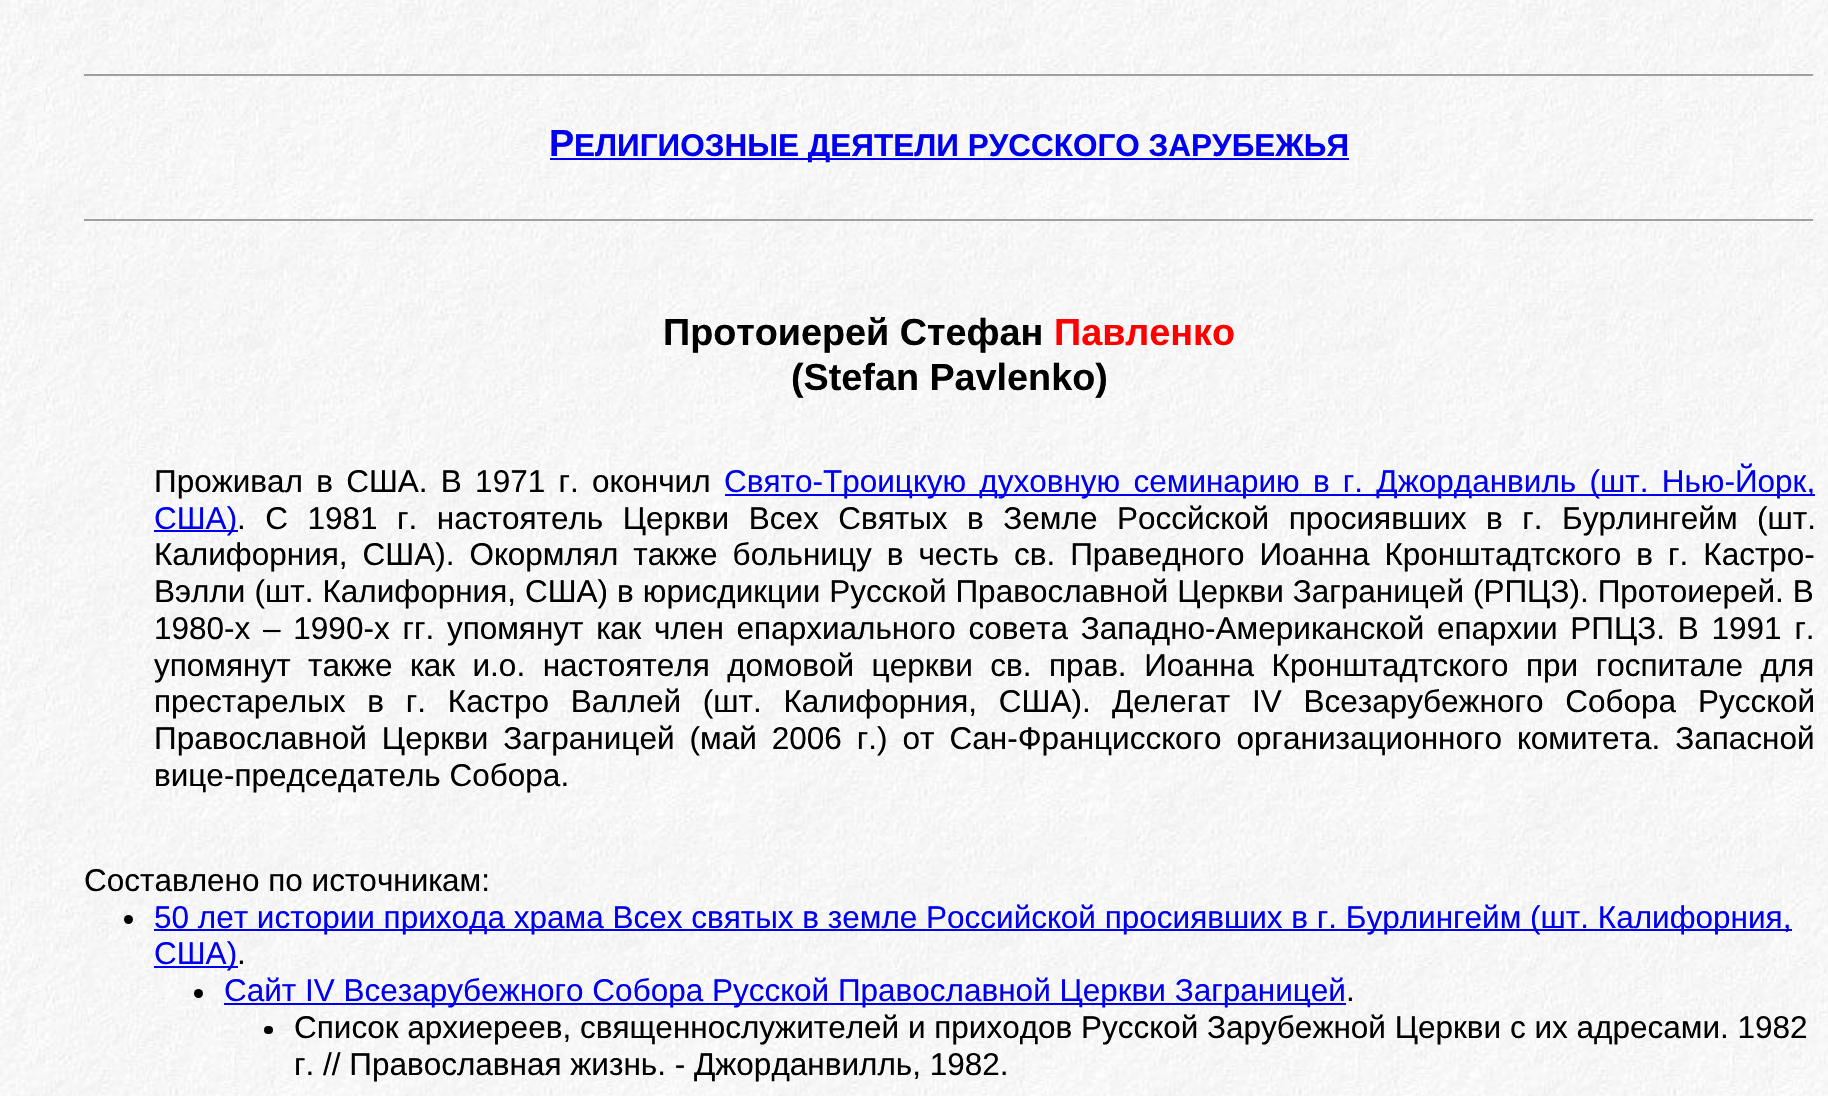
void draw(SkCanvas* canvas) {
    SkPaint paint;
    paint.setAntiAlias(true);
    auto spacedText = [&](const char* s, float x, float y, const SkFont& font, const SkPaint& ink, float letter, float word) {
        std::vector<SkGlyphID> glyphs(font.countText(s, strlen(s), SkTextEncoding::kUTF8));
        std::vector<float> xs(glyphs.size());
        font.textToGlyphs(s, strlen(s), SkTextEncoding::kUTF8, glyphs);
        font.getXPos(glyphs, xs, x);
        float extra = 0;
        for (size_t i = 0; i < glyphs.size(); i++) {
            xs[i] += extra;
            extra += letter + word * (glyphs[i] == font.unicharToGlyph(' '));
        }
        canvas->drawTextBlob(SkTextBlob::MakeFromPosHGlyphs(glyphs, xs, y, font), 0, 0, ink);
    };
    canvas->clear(0xFFFFFFFF);
    canvas->drawImageRect(SkImages::DeferredFromEncodedData(SkData::MakeFromFileName("img1.png")), SkRect::MakeXYWH(0, 0, 1828, 1096), SkSamplingOptions());
    paint.setColor(0xFF9F9F9F);
    canvas->drawRect(SkRect::MakeXYWH(84, 74, 1731, 2), paint);
    paint.setColor(0xFFEEEEEE);
    canvas->drawRect(SkRect::MakeXYWH(1813, 74, 2, 2), paint);
    SkFont font1(fontMgr->matchFamilyStyle("Liberation Sans", SkFontStyle::Bold()), 37.75f);
    font1.setSubpixel(true);
    paint.setColor(0xFF0000EE);
    canvas->drawString("Р", 549, 156, font1, paint);
    canvas->drawRect(SkRect::MakeXYWH(550, 158, 799, 2), paint);
    SkFont font2(fontMgr->matchFamilyStyle("Liberation Sans", SkFontStyle::Bold()), 31.5f);
    font2.setSubpixel(true);
    canvas->drawString("ЕЛИГИОЗНЫЕ ДЕЯТЕЛИ РУССКОГО ЗАРУБЕЖЬЯ", 574, 156, font2, paint);
    paint.setColor(0xFF9F9F9F);
    canvas->drawRect(SkRect::MakeXYWH(84, 219, 1731, 2), paint);
    paint.setColor(0xFFEEEEEE);
    canvas->drawRect(SkRect::MakeXYWH(1813, 219, 2, 2), paint);
    paint.setColor(0xFF000000);
    canvas->drawString("Протоиерей Стефан", 663, 345, font1, paint);
    paint.setColor(0xFFFF0000);
    canvas->drawString("Павленко", 1054, 345, font1, paint);
    paint.setColor(0xFF000000);
    canvas->drawString("(Stefan Pavlenko)", 791, 390, font1, paint);
    SkFont font3(fontMgr->matchFamilyStyle("Liberation Sans", SkFontStyle::Normal()), 31.5f);
    font3.setSubpixel(true);
    spacedText("Проживал в США. В 1971 г. окончил", 154, 492, font3, paint, 0, 4.5f);
    paint.setColor(0xFF0000EE);
    canvas->drawRect(SkRect::MakeXYWH(725, 494, 1090, 2), paint);
    spacedText("Свято-Троицкую духовную семинарию в г. Джорданвиль (шт. Нью-Йорк,", 724, 492, font3, paint, 0, 4.5f);
    canvas->drawRect(SkRect::MakeXYWH(154, 530, 84, 2), paint);
    canvas->drawString("США)", 154, 529, font3, paint);
    paint.setColor(0xFF000000);
    spacedText(". С 1981 г. настоятель Церкви Всех Святых в Земле Россйской просиявших в г. Бурлингейм (шт.", 237, 529, font3, paint, 0, 10.75f);
    spacedText("Калифорния, США). Окормлял также больницу в честь св. Праведного Иоанна Кронштадтского в г. Кастро-", 154, 565, font3, paint, 0, 6.25f);
    spacedText("Вэлли (шт. Калифорния, США) в юрисдикции Русской Православной Церкви Заграницей (РПЦЗ). Протоиерей. В", 154, 602, font3, paint, 0, 0.25f);
    spacedText("1980-х – 1990-х гг. упомянут как член епархиального совета Западно-Американской епархии РПЦЗ. В 1991 г.", 154, 639, font3, paint, 0, 4);
    spacedText("упомянут также как и.о. настоятеля домовой церкви св. прав. Иоанна Кронштадтского при госпитале для", 154, 676, font3, paint, 0, 8.75f);
    spacedText("престарелых в г. Кастро Валлей (шт. Калифорния, США).", 154, 712, font3, paint, 0, 13);
    spacedText("Делегат IV Всезарубежного Собора Русской", 1112, 712, font3, paint, 0, 13);
    spacedText("Православной Церкви Заграницей (май 2006 г.) от Сан-Францисского организационного комитета. Запасной", 154, 749, font3, paint, 0, 6.25f);
    canvas->drawString("вице-председатель Собора.", 154, 786, font3, paint);
    canvas->drawString("Составлено по источникам:", 84, 891, font3, paint);
    canvas->drawCircle(128.5f, 919.5f, 4.5f, paint);
    paint.setColor(0xFF0000EE);
    canvas->drawRect(SkRect::MakeXYWH(154, 929, 1638, 2), paint);
    canvas->drawString("50 лет истории прихода храма Всех святых в земле Российской просиявших в г. Бурлингейм (шт. Калифорния,", 154, 928, font3, paint);
    canvas->drawRect(SkRect::MakeXYWH(154, 966, 84, 2), paint);
    canvas->drawString("США)", 154, 964, font3, paint);
    paint.setColor(0xFF000000);
    canvas->drawString(".", 237, 964, font3, paint);
    canvas->drawCircle(198.5f, 993.5f, 4.5f, paint);
    paint.setColor(0xFF0000EE);
    canvas->drawRect(SkRect::MakeXYWH(224, 1003, 1122, 2), paint);
    canvas->drawString("Сайт IV Всезарубежного Собора Русской Православной Церкви Заграницей", 224, 1001, font3, paint);
    paint.setColor(0xFF000000);
    canvas->drawString(".", 1346, 1001, font3, paint);
    canvas->drawRoundRect(SkRect::MakeXYWH(264, 1026, 9, 8), 4, 4, paint);
    canvas->drawString("Список архиереев, священнослужителей и приходов Русской Зарубежной Церкви с их адресами. 1982", 294, 1038, font3, paint);
    canvas->drawString("г. // Православная жизнь. - Джорданвилль, 1982.", 294, 1075, font3, paint);
}
